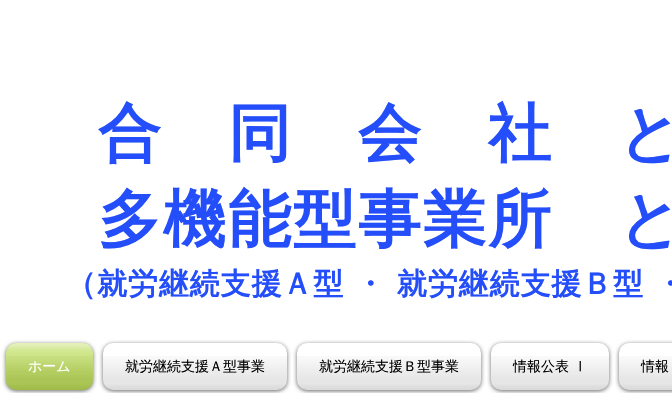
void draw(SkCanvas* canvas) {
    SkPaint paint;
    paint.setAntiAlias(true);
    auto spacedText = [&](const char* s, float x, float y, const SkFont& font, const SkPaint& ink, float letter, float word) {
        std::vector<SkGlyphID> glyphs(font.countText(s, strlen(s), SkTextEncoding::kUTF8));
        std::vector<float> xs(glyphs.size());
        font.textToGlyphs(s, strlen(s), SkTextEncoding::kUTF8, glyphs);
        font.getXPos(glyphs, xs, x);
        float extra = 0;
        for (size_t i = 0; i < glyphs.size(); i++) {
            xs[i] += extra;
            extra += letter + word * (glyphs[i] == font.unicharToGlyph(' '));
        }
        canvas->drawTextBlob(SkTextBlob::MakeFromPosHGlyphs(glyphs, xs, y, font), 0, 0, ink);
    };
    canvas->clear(0xFFFFFFFF);
    SkFont font1(fontMgr->matchFamilyStyle("WenQuanYi Zen Hei", SkFontStyle::Bold()), 63);
    font1.setSubpixel(true);
    paint.setColor(0xFF244EF9);
    spacedText("合　同　会　社　と", 98, 155, font1, paint, 2, 0);
    spacedText("多機能型事業所　と", 98, 241, font1, paint, 2, 0);
    SkFont font2(fontMgr->matchFamilyStyle("WenQuanYi Zen Hei", SkFontStyle::Bold()), 30);
    font2.setSubpixel(true);
    spacedText("（就労継続支援Ａ型 ・ 就労継続支援Ｂ型 ・", 66, 294, font2, paint, 0.9f, 1);
    paint.setColor(0x99000000);
    paint.setMaskFilter(SkMaskFilter::MakeBlur(kNormal_SkBlurStyle, 2));
    canvas->drawRoundRect(SkRect::MakeXYWH(6, 344, 87, 47), 10, 10, paint);
    paint.setMaskFilter(nullptr);
    paint.setColor(0xFFBADA55);
    canvas->drawRoundRect(SkRect::MakeXYWH(6, 343, 87, 47), 10, 10, paint);
    canvas->drawImageRect(SkImages::DeferredFromEncodedData(SkData::MakeFromFileName("img1.png")), SkRect::MakeXYWH(6, 343, 87, 45), SkSamplingOptions());
    canvas->drawImageRect(SkImages::DeferredFromEncodedData(SkData::MakeFromFileName("img2.png")), SkRect::MakeXYWH(6, 356, 87, 34), SkSamplingOptions());
    SkFont font3(fontMgr->matchFamilyStyle("WenQuanYi Zen Hei", SkFontStyle(500, SkFontStyle::kNormal_Width, SkFontStyle::kUpright_Slant)), 14);
    font3.setSubpixel(true);
    paint.setColor(0xFFFFFFFF);
    canvas->drawString("ホーム", 28, 371, font3, paint);
    paint.setColor(0x99000000);
    paint.setMaskFilter(SkMaskFilter::MakeBlur(kNormal_SkBlurStyle, 2));
    canvas->drawRoundRect(SkRect::MakeXYWH(103, 344, 184, 47), 10, 10, paint);
    paint.setMaskFilter(nullptr);
    paint.setColor(0xFFFFFFFF);
    canvas->drawRoundRect(SkRect::MakeXYWH(103, 343, 184, 47), 10, 10, paint);
    canvas->drawImageRect(SkImages::DeferredFromEncodedData(SkData::MakeFromFileName("img3.png")), SkRect::MakeXYWH(103, 356, 184, 34), SkSamplingOptions());
    paint.setColor(0xFF000000);
    canvas->drawString("就労継続支援Ａ型事業", 125, 371, font3, paint);
    paint.setColor(0x99000000);
    paint.setMaskFilter(SkMaskFilter::MakeBlur(kNormal_SkBlurStyle, 2));
    canvas->drawRoundRect(SkRect::MakeXYWH(297, 344, 184, 47), 10, 10, paint);
    paint.setMaskFilter(nullptr);
    paint.setColor(0xFFFFFFFF);
    canvas->drawRoundRect(SkRect::MakeXYWH(297, 343, 184, 47), 10, 10, paint);
    canvas->drawImageRect(SkImages::DeferredFromEncodedData(SkData::MakeFromFileName("img3.png")), SkRect::MakeXYWH(297, 356, 184, 34), SkSamplingOptions());
    paint.setColor(0xFF000000);
    canvas->drawString("就労継続支援Ｂ型事業", 319, 371, font3, paint);
    paint.setColor(0x99000000);
    paint.setMaskFilter(SkMaskFilter::MakeBlur(kNormal_SkBlurStyle, 2));
    canvas->drawRoundRect(SkRect::MakeXYWH(491, 344, 118, 47), 10, 10, paint);
    paint.setMaskFilter(nullptr);
    paint.setColor(0xFFFFFFFF);
    canvas->drawRoundRect(SkRect::MakeXYWH(491, 343, 118, 47), 10, 10, paint);
    canvas->drawImageRect(SkImages::DeferredFromEncodedData(SkData::MakeFromFileName("img4.png")), SkRect::MakeXYWH(491, 356, 118, 34), SkSamplingOptions());
    paint.setColor(0xFF000000);
    canvas->drawString("情報公表 Ⅰ", 513, 371, font3, paint);
    paint.setColor(0x99000000);
    paint.setMaskFilter(SkMaskFilter::MakeBlur(kNormal_SkBlurStyle, 2));
    canvas->drawRoundRect(SkRect::MakeXYWH(619, 344, 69, 47), 10, 10, paint);
    paint.setMaskFilter(nullptr);
    paint.setColor(0xFFFFFFFF);
    canvas->drawRoundRect(SkRect::MakeXYWH(619, 343, 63, 47), 10, 10, paint);
    canvas->drawImageRect(SkImages::DeferredFromEncodedData(SkData::MakeFromFileName("img5.png")), SkRect::MakeXYWH(619, 356, 53, 34), SkSamplingOptions());
    paint.setColor(0xFF000000);
    canvas->drawString("情報", 641, 371, font3, paint);
}
